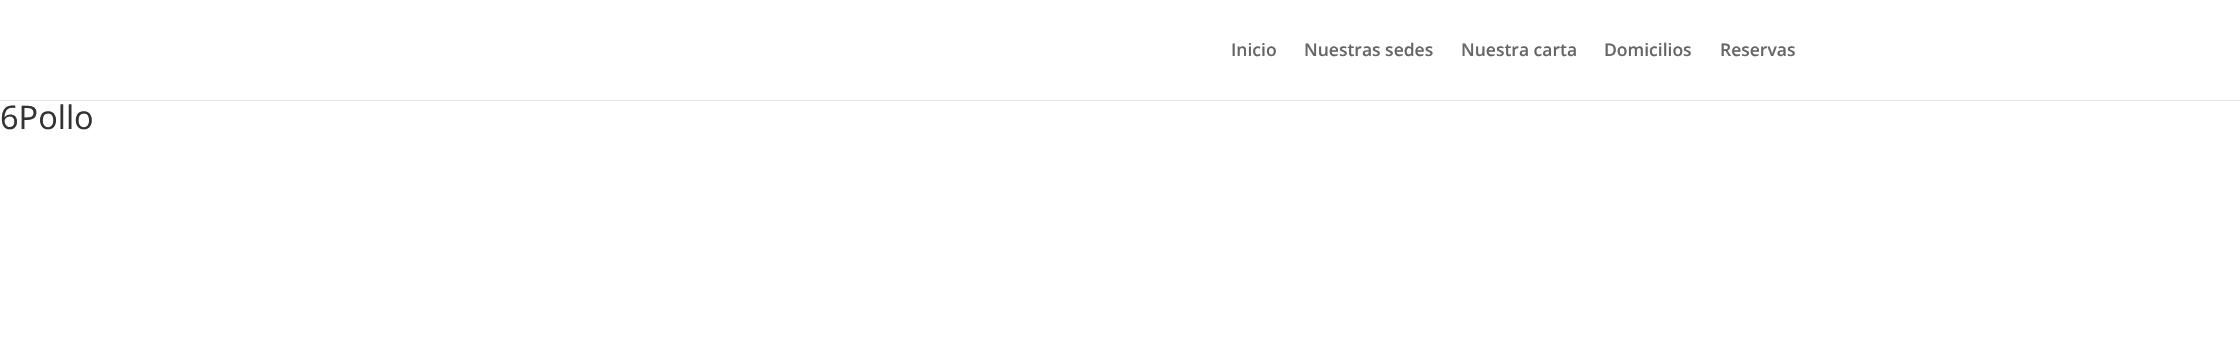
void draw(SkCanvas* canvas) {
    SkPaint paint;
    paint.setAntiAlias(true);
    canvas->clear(0xFFFFFFFF);
    paint.setColor(0xFFE6E6E6);
    canvas->drawRect(SkRect::MakeXYWH(0, 100, 2240, 1), paint);
    SkFont font1(fontMgr->matchFamilyStyle("Open Sans", SkFontStyle(600, SkFontStyle::kNormal_Width, SkFontStyle::kUpright_Slant)), 17.5f);
    font1.setSubpixel(true);
    paint.setColor(0xFF666666);
    canvas->drawString("Inicio", 1231, 56, font1, paint);
    canvas->drawString("Nuestras sedes", 1304, 56, font1, paint);
    canvas->drawString("Nuestra carta", 1461, 56, font1, paint);
    canvas->drawString("Domicilios", 1604, 56, font1, paint);
    canvas->drawString("Reservas", 1720, 56, font1, paint);
    SkFont font2(fontMgr->matchFamilyStyle("Open Sans", SkFontStyle::Normal()), 32.5f);
    font2.setSubpixel(true);
    paint.setColor(0xFF333333);
    canvas->drawString("6Pollo", 0, 129, font2, paint);
}
